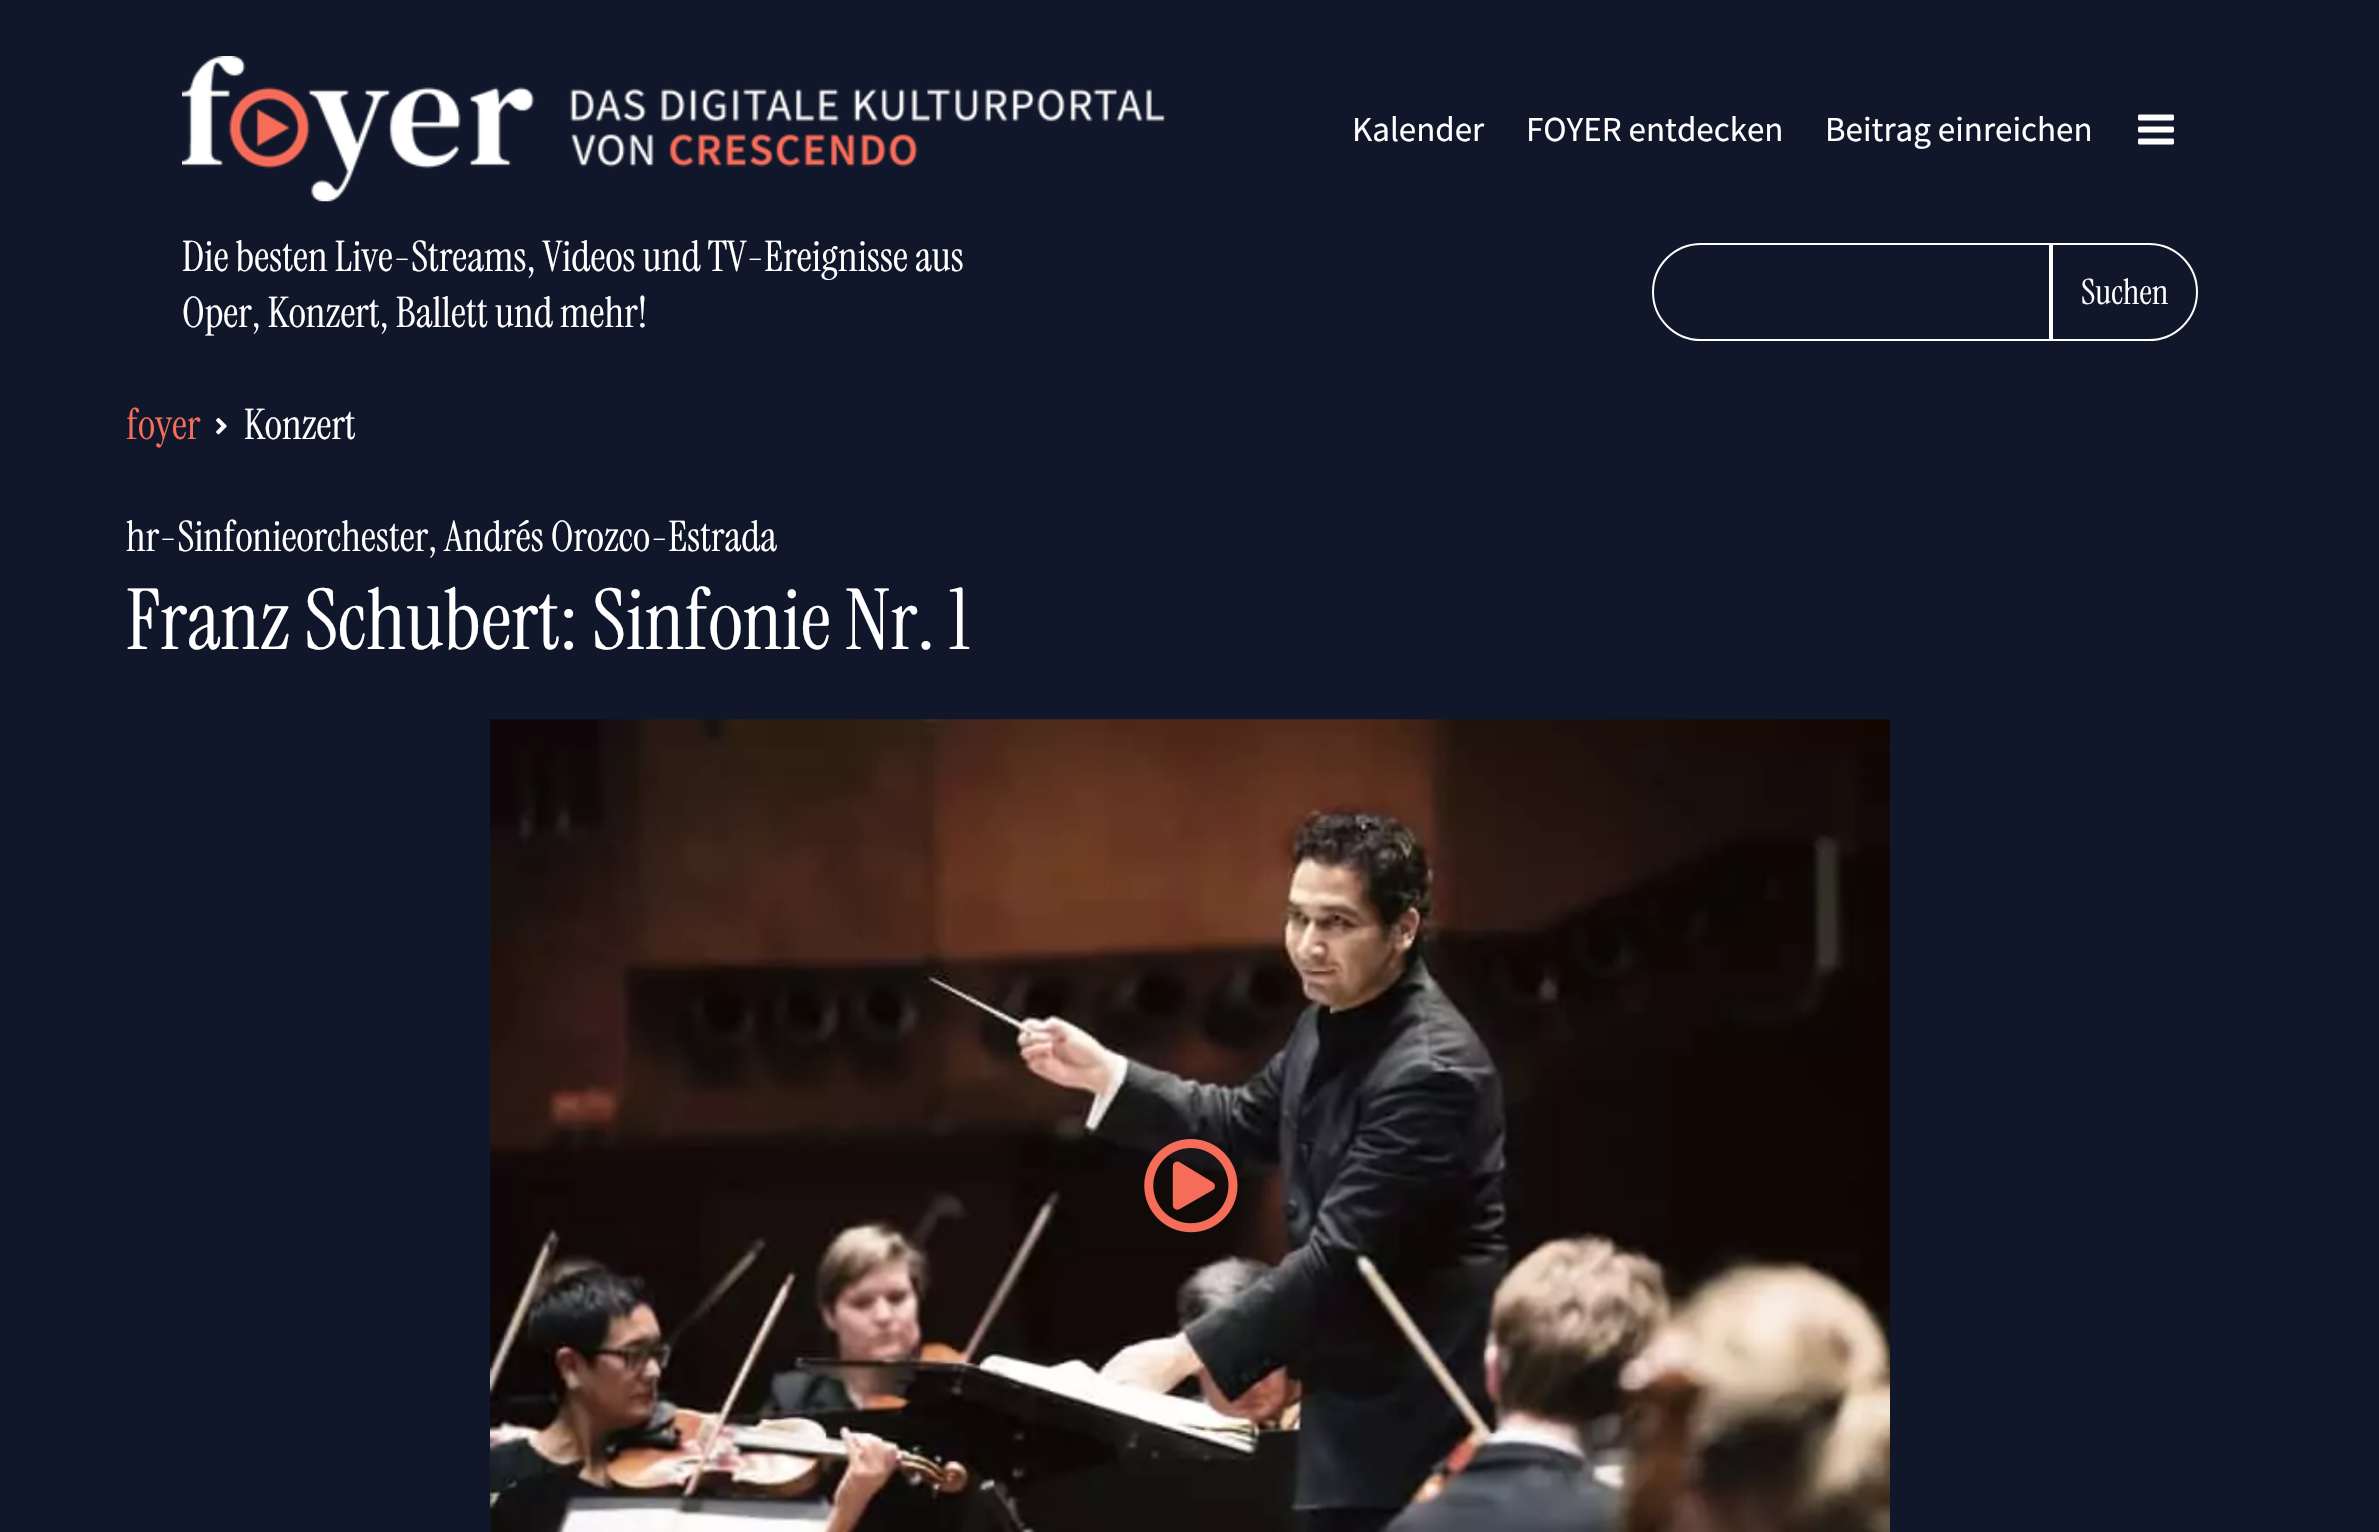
void draw(SkCanvas* canvas) {
    SkPaint paint;
    paint.setAntiAlias(true);
    canvas->clear(0xFF10172B);
    canvas->drawImageRect(SkImages::DeferredFromEncodedData(SkData::MakeFromFileName("img1.png")), SkRect::MakeXYWH(182, 56, 984, 146), SkSamplingOptions());
    SkFont font1(fontMgr->matchFamilyStyle("Source Sans Pro", SkFontStyle::Normal()), 35);
    font1.setSubpixel(true);
    paint.setColor(0xFFFFFFFF);
    canvas->drawString("Kalender", 1352, 141, font1, paint);
    canvas->drawString("FOYER entdecken", 1526, 141, font1, paint);
    canvas->drawString("Beitrag einreichen", 1825, 141, font1, paint);
    canvas->drawImageRect(SkImages::DeferredFromEncodedData(SkData::MakeFromFileName("img2.png")), SkRect::MakeXYWH(2138, 114, 36, 31), SkSamplingOptions());
    SkFont font2(fontMgr->matchFamilyStyle("Instrument Serif", SkFontStyle::Normal()), 42);
    font2.setSubpixel(true);
    canvas->drawString("Die besten Live-Streams, Videos und TV-Ereignisse aus", 182, 271, font2, paint);
    canvas->drawString("Oper, Konzert, Ballett und mehr!", 182, 327, font2, paint);
    paint.setStyle(SkPaint::kStroke_Style);
    paint.setStrokeWidth(2);
    canvas->drawPath(SkPathBuilder().moveTo(1701, 244).lineTo(2050, 244).lineTo(2050, 340).lineTo(1701, 340).cubicTo(1674.5f, 340, 1653, 318.5f, 1653, 292).cubicTo(1653, 265.5f, 1674.5f, 244, 1701, 244).close().detach(), paint);
    canvas->drawPath(SkPathBuilder().moveTo(2052, 244).lineTo(2149, 244).cubicTo(2175.5f, 244, 2197, 265.5f, 2197, 292).cubicTo(2197, 318.5f, 2175.5f, 340, 2149, 340).lineTo(2052, 340).close().detach(), paint);
    SkFont font3(fontMgr->matchFamilyStyle("Instrument Serif", SkFontStyle::Normal()), 35);
    font3.setSubpixel(true);
    paint.setStyle(SkPaint::kFill_Style);
    canvas->drawString("Suchen", 2081, 304, font3, paint);
    paint.setColor(0xFFF56C59);
    canvas->drawString("foyer", 126, 439, font2, paint);
    canvas->drawImageRect(SkImages::DeferredFromEncodedData(SkData::MakeFromFileName("img3.png")), SkRect::MakeXYWH(216, 417, 11, 18), SkSamplingOptions());
    paint.setColor(0xFFFFFFFF);
    canvas->drawString("Konzert", 244, 439, font2, paint);
    canvas->drawString("hr-Sinfonieorchester, Andrés Orozco-Estrada", 126, 551, font2, paint);
    SkFont font4(fontMgr->matchFamilyStyle("Instrument Serif", SkFontStyle::Normal()), 84);
    font4.setSubpixel(true);
    canvas->drawString("Franz Schubert: Sinfonie Nr. 1", 126, 649, font4, paint);
    canvas->drawImageRect(SkImages::DeferredFromEncodedData(SkData::MakeFromFileName("img4.png")), SkRect::MakeXYWH(490, 719, 1400, 813), SkSamplingOptions());
    canvas->drawImageRect(SkImages::DeferredFromEncodedData(SkData::MakeFromFileName("img5.png")), SkRect::MakeXYWH(1144, 1139, 94, 94), SkSamplingOptions());
}
